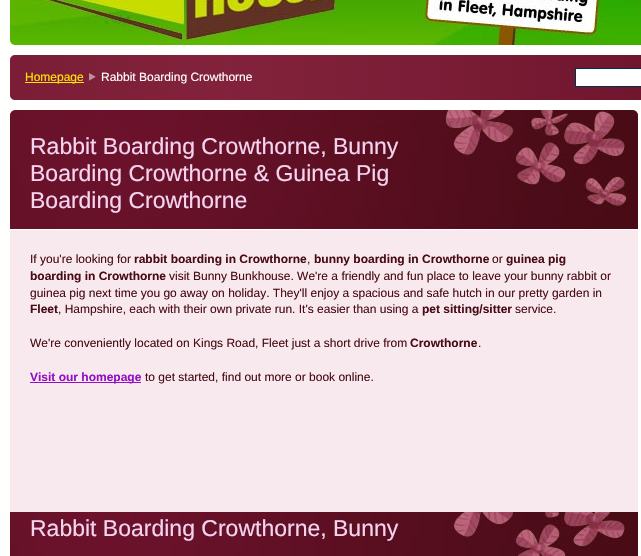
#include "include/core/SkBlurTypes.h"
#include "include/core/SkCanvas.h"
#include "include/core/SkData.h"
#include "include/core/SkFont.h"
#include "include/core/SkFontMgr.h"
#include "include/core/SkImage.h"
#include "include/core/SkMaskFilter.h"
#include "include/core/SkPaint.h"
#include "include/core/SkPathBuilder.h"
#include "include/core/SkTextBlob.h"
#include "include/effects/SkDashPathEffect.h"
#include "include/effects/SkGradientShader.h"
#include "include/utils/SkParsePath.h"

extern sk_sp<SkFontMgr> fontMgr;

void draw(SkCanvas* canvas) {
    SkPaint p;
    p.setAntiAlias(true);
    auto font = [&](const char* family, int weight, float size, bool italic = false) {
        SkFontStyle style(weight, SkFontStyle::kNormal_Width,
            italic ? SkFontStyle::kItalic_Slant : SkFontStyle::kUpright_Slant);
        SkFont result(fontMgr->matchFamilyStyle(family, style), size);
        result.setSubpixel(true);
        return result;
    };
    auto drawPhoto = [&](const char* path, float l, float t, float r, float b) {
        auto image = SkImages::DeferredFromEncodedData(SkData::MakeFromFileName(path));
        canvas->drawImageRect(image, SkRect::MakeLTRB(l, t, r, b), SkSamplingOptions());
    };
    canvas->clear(0xFFFFFFFE);
    drawPhoto("media/1.png", 10, 0, 641, 45);
    drawPhoto("media/2.png", 10, 40, 15, 45);
    drawPhoto("media/3.png", 10, 55, 641, 100);
    drawPhoto("media/4.png", 10, 95, 14, 100);
    drawPhoto("media/5.png", 10, 55, 15, 60);
    p.setColor(0xFFFFE400);
    canvas->drawRect(SkRect::MakeLTRB(25, 82, 84, 83), p);
    auto font1 = font("Liberation Sans", 400, 12);
    canvas->drawString("Homepage", 25, 81, font1, p);
    drawPhoto("media/6.png", 89, 73, 96, 81);
    p.setColor(0xFFFFFFFF);
    canvas->drawString("Rabbit Boarding Crowthorne", 101, 81, font1, p);
    canvas->drawRect(SkRect::MakeLTRB(575.5f, 68.5f, 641.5f, 86.5f), p);
    p.setStyle(SkPaint::kStroke_Style);
    p.setStrokeWidth(1);
    p.setColor(0xFF00314C);
    canvas->drawRect(SkRect::MakeLTRB(575.5f, 68.5f, 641.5f, 86.5f), p);
    p.setStyle(SkPaint::kFill_Style);
    p.setColor(0xFFF7E9ED);
    canvas->drawRect(SkRect::MakeLTRB(10, 230, 638, 512), p);
    drawPhoto("media/7.png", 10, 110, 638, 130);
    drawPhoto("media/8.png", 10, 130, 638, 229);
    auto font2 = font("Liberation Sans", 400, 23);
    p.setColor(0xFFF5D4EF);
    {
        const struct { const char* s; float x, y; } items[] = {
            {"Rabbit Boarding Crowthorne, Bunny", 30, 154},
            {"Boarding Crowthorne & Guinea Pig", 30, 181},
            {"Boarding Crowthorne", 30, 208},
        };
        for (auto [s, x, y] : items) {
            canvas->drawString(s, x, y, font2, p);
        }
    }
    p.setColor(0xFF490B16);
    canvas->drawString("If you're looking for", 30, 263, font1, p);
    auto font3 = font("Liberation Sans", 700, 12);
    canvas->drawString("rabbit boarding in Crowthorne", 134, 263, font3, p);
    canvas->drawString(",", 307, 263, font1, p);
    canvas->drawString("bunny boarding in Crowthorne", 314, 263, font3, p);
    canvas->drawString("or", 492, 263, font1, p);
    canvas->drawString("guinea pig", 506, 263, font3, p);
    canvas->drawString("boarding in Crowthorne", 30, 280, font3, p);
    canvas->drawString("visit Bunny Bunkhouse. We're a friendly and fun place to leave your bunny rabbit or", 169, 280, font1, p);
    canvas->drawString("guinea pig next time you go away on holiday. They'll enjoy a spacious and safe hutch in our pretty garden in", 30, 297, font1, p);
    canvas->drawString("Fleet", 30, 313, font3, p);
    canvas->drawString(", Hampshire, each with their own private run. It's easier than using a", 58, 313, font1, p);
    canvas->drawString("pet sitting/sitter", 422, 313, font3, p);
    canvas->drawString("service.", 515, 313, font1, p);
    canvas->drawString("We're conveniently located on Kings Road, Fleet just a short drive from", 30, 347, font1, p);
    canvas->drawString("Crowthorne", 410, 347, font3, p);
    canvas->drawString(".", 478, 347, font1, p);
    p.setColor(0xFF9310C7);
    canvas->drawRect(SkRect::MakeLTRB(30, 382, 141, 383), p);
    canvas->drawString("Visit our homepage", 30, 381, font3, p);
    p.setColor(0xFF490B16);
    canvas->drawString("to get started, find out more or book online.", 145, 381, font1, p);
    drawPhoto("media/9.png", 10, 512, 638, 556);
    p.setColor(0xFFF5D4EF);
    canvas->drawString("Rabbit Boarding Crowthorne, Bunny", 30, 536, font2, p);
}
